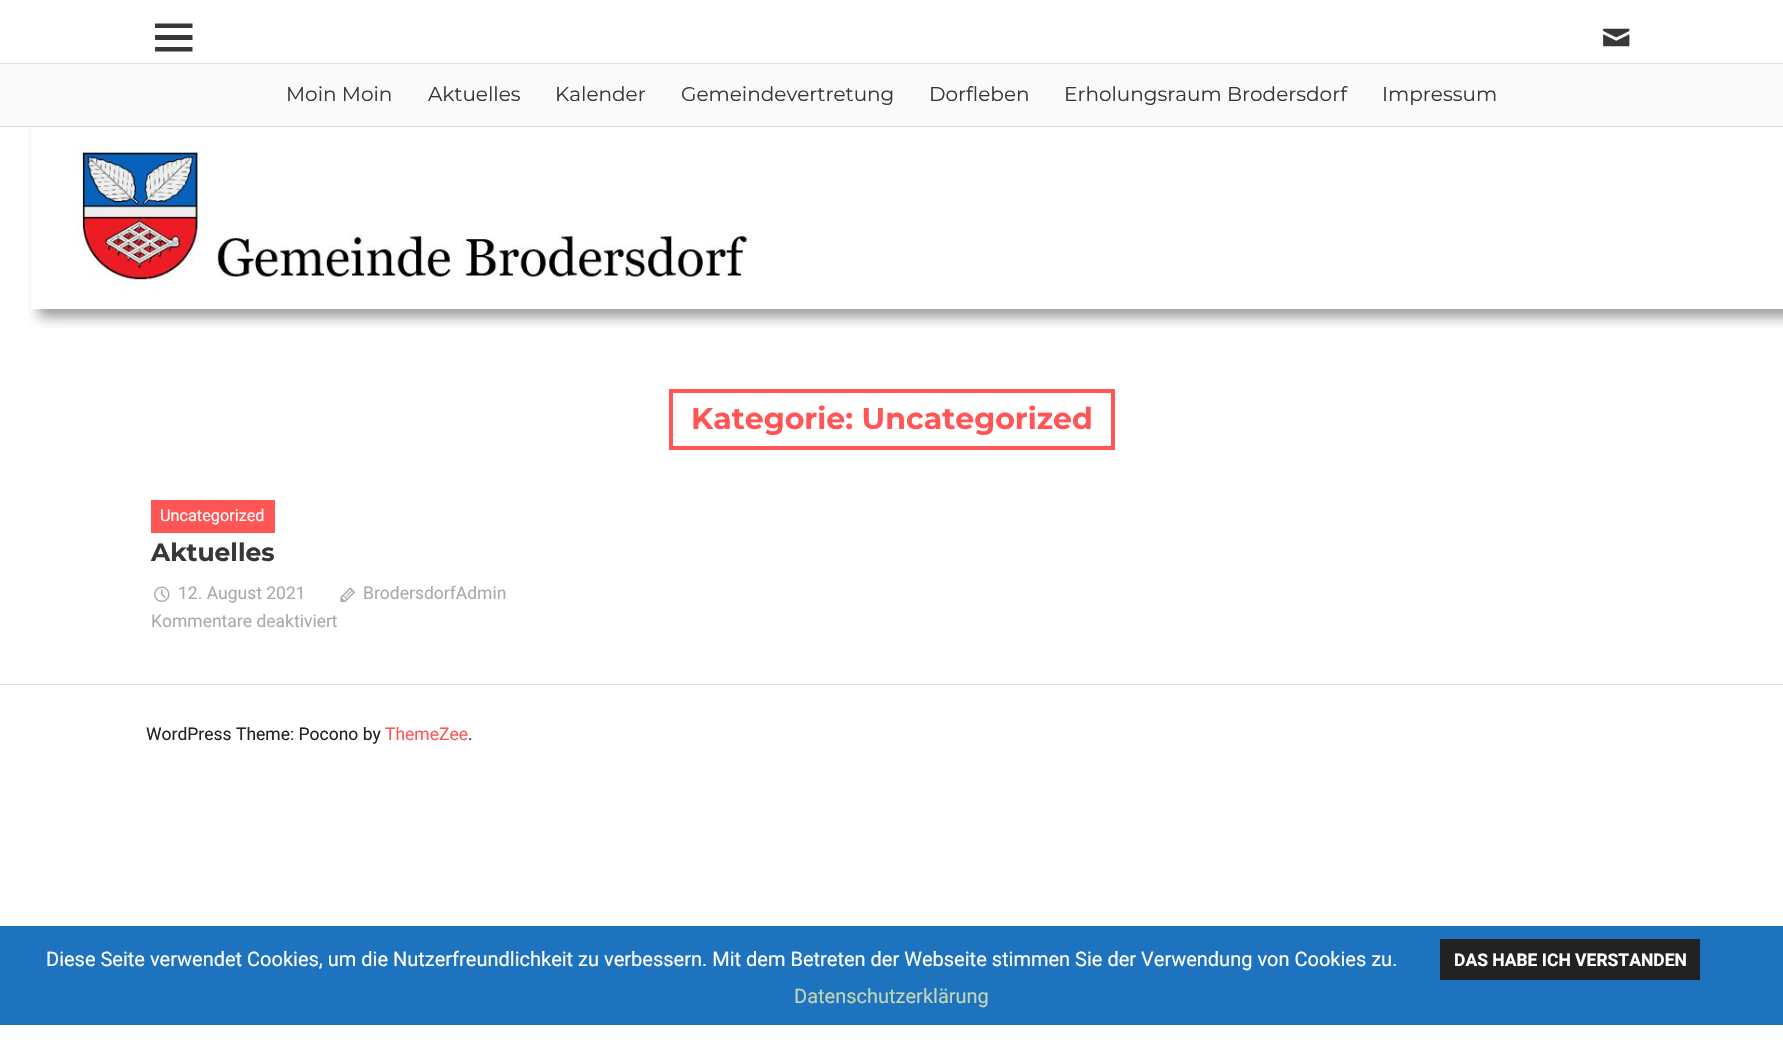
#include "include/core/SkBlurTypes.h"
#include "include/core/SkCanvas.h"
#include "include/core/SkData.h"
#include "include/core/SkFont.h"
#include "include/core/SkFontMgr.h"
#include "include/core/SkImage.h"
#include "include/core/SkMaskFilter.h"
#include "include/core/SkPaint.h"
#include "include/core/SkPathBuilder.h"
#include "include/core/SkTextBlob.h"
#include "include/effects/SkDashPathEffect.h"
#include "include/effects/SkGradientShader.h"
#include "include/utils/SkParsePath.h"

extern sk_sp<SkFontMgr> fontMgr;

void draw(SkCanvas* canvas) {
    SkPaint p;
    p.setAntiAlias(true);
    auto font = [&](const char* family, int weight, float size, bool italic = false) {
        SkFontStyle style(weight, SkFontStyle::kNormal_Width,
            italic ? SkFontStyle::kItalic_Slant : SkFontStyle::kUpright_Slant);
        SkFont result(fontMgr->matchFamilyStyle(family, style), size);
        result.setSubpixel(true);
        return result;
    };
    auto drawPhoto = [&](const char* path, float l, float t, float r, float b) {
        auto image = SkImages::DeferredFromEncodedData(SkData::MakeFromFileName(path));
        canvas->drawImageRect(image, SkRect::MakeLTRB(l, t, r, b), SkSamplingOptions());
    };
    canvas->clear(0xFFFFFFFF);
    p.setColor(0xFFDFDFDF);
    canvas->drawRect(SkRect::MakeLTRB(0, 63, 1783, 64), p);
    p.setColor(0xFF373737);
    canvas->drawPath(SkPathBuilder().moveTo(155, 51.5f).lineTo(155, 47).lineTo(192.5f, 47).lineTo(192.5f, 51.5f).close().moveTo(155, 23.5f).lineTo(192.5f, 23.5f).lineTo(192.5f, 28).lineTo(155, 28).close().moveTo(155, 40).lineTo(155, 35).lineTo(192.5f, 35).lineTo(192.5f, 40).close().detach(), p);
    drawPhoto("media/1.png", 1603, 28, 1630, 47);
    p.setColor(0xFFFAFAFA);
    canvas->drawRect(SkRect::MakeLTRB(0, 64, 1783, 128), p);
    p.setColor(0xFFDBDBDB);
    canvas->drawRect(SkRect::MakeLTRB(0, 126, 1783, 127), p);
    auto font1 = font("Montserrat", 400, 20);
    p.setColor(0xFF373737);
    {
        const struct { const char* s; float x, y; } items[] = {
            {"Moin Moin", 286, 101},
            {"Aktuelles", 428, 101},
            {"Kalender", 555, 101},
            {"Gemeindevertretung", 681, 101},
            {"Dorfleben", 929, 101},
            {"Erholungsraum Brodersdorf", 1064, 101},
            {"Impressum", 1382, 101},
        };
        for (auto [s, x, y] : items) {
            canvas->drawString(s, x, y, font1, p);
        }
    }
    drawPhoto("media/2.png", 28, 128, 1783, 328);
    p.setStyle(SkPaint::kStroke_Style);
    p.setStrokeWidth(4);
    p.setColor(0xFFFF5555);
    canvas->drawRect(SkRect::MakeLTRB(671, 391, 1113, 448), p);
    auto font2 = font("Montserrat", 700, 30);
    p.setStyle(SkPaint::kFill_Style);
    canvas->drawString("Kategorie: Uncategorized", 691, 429, font2, p);
    canvas->drawRect(SkRect::MakeLTRB(151, 500, 275, 533), p);
    auto font3 = font("Roboto", 400, 16.25f);
    p.setColor(0xFFFFFFFF);
    canvas->drawString("Uncategorized", 160, 521, font3, p);
    auto font4 = font("Montserrat", 700, 25);
    p.setColor(0xFF373737);
    canvas->drawString("Aktuelles", 151, 561, font4, p);
    drawPhoto("media/3.png", 154, 586, 170, 602);
    auto font5 = font("Roboto", 400, 17.5f);
    p.setColor(0xFFAAAAAA);
    canvas->drawString("12. August 2021", 178, 599, font5, p);
    drawPhoto("media/4.png", 340, 587, 356, 602);
    canvas->drawString("BrodersdorfAdmin", 363, 599, font5, p);
    canvas->drawString("Kommentare deaktiviert", 151, 627, font5, p);
    p.setColor(0xFFDFDFDF);
    canvas->drawRect(SkRect::MakeLTRB(0, 684, 1783, 685), p);
    p.setColor(0xFF222222);
    canvas->drawString("WordPress Theme: Pocono by", 146, 740, font5, p);
    p.setColor(0xFFFF5555);
    canvas->drawString("ThemeZee", 385, 740, font5, p);
    p.setColor(0xFF222222);
    canvas->drawString(".", 468, 740, font5, p);
    p.setColor(0xFF1E73BE);
    canvas->drawRect(SkRect::MakeLTRB(0, 926, 1783, 1025), p);
    auto font6 = font("Roboto", 400, 20);
    p.setColor(0xFFFFFFFF);
    canvas->drawString("Diese Seite verwendet Cookies, um die Nutzerfreundlichkeit zu verbessern. Mit dem Betreten der Webseite stimmen Sie der Verwendung von Cookies zu.", 46, 966, font6, p);
    p.setColor(0xFF222222);
    canvas->drawRect(SkRect::MakeLTRB(1440, 939, 1700, 980), p);
    auto font7 = font("Roboto", 700, 17.5f);
    p.setColor(0xFFFFFFFF);
    canvas->drawString("DAS HABE ICH VERSTANDEN", 1454, 966, font7, p);
    p.setColor(0xFFC2D6B6);
    canvas->drawString("Datenschutzerklärung", 794, 1003, font6, p);
}
